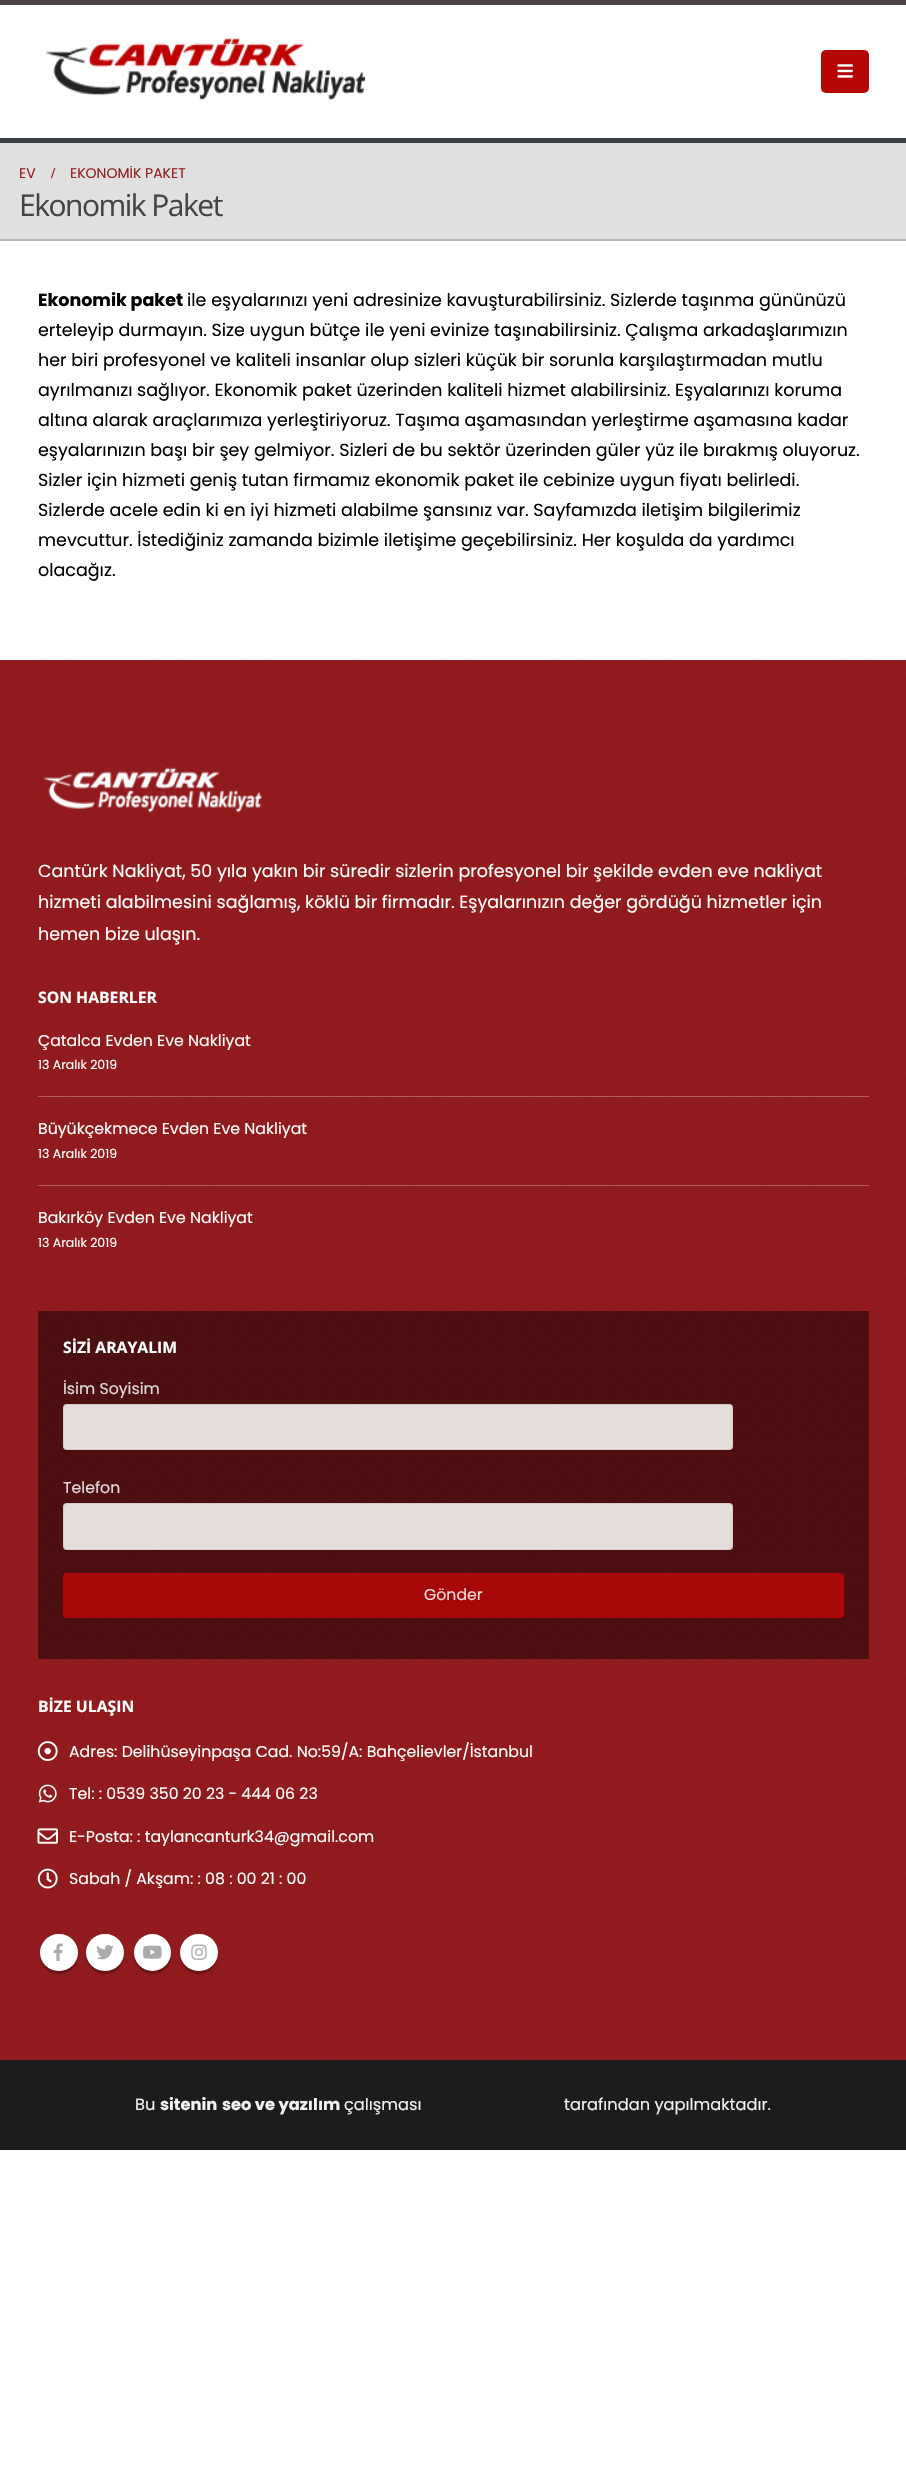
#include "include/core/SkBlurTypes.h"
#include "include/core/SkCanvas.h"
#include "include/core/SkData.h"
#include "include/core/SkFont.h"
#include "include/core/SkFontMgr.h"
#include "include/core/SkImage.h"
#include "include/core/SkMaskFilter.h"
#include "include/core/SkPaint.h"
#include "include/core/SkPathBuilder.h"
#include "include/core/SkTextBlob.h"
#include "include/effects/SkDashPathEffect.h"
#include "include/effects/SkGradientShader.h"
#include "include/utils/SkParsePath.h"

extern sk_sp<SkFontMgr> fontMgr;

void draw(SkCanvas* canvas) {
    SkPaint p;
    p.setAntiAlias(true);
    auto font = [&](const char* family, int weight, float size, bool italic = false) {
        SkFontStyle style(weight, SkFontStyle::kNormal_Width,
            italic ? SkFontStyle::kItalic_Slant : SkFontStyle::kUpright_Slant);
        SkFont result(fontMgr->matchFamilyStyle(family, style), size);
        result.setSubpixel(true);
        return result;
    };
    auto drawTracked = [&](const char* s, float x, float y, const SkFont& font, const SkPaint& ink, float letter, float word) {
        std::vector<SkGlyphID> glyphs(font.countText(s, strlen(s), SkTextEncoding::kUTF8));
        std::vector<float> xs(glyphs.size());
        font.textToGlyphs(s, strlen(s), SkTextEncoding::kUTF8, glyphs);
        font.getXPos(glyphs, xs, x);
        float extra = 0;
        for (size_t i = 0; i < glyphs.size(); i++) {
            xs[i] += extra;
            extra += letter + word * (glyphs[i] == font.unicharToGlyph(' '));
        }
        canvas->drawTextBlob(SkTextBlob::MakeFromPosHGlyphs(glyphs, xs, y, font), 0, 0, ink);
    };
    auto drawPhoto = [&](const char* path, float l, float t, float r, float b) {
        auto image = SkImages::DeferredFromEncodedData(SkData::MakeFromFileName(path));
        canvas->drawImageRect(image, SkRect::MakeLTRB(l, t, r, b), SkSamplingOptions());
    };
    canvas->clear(0xFFFFFFFF);
    p.setColor(0xFF4C4345);
    canvas->drawRect(SkRect::MakeLTRB(0, 0, 906, 5), p);
    drawPhoto("media/1.png", 46, 38, 366, 101);
    p.setColor(0xFFB50505);
    canvas->drawRoundRect(SkRect::MakeLTRB(821, 50, 869, 93), 5, 5, p);
    drawPhoto("media/2.png", 837, 64, 853, 78);
    {
        const struct { float l, t, r, b; SkColor color; } items[] = {
            {0, 143, 906, 239, 0xFFE0E0E0},
            {0, 138, 906, 143, 0xFF384045},
            {0, 239, 906, 241, 0xFFB5B5B5},
        };
        for (auto [l, t, r, b, color] : items) {
            p.setColor(color);
            canvas->drawRect(SkRect::MakeLTRB(l, t, r, b), p);
        }
    }
    auto font1 = font("Poppins", 400, 14);
    p.setColor(0xFF981C1F);
    canvas->drawString("EV", 19, 178, font1, p);
    auto font2 = font("Liberation Serif", 700, 15);
    canvas->drawString("/", 51, 178, font2, p);
    canvas->drawString("EKONOMİK PAKET", 70, 178, font1, p);
    auto font3 = font("Open Sans", 400, 30);
    p.setColor(0xFF444444);
    drawTracked("Ekonomik Paket", 19, 216, font3, p, -1.5f, 0);
    auto font4 = font("Poppins", 700, 17.5f);
    p.setColor(0xFF000000);
    canvas->drawString("Ekonomik paket", 38, 306, font4, p);
    auto font5 = font("Poppins", 400, 17.5f);
    {
        const struct { const char* s; float x, y; } items[] = {
            {"ile eşyalarınızı yeni adresinize kavuşturabilirsiniz. Sizlerde taşınma gününüzü", 187, 306},
            {"erteleyip durmayın. Size uygun bütçe ile yeni evinize taşınabilirsiniz. Çalışma arkadaşlarımızın", 38, 336},
            {"her biri profesyonel ve kaliteli insanlar olup sizleri küçük bir sorunla karşılaştırmadan mutlu", 38, 366},
            {"ayrılmanızı sağlıyor. Ekonomik paket üzerinden kaliteli hizmet alabilirsiniz. Eşyalarınızı koruma", 38, 396},
            {"altına alarak araçlarımıza yerleştiriyoruz. Taşıma aşamasından yerleştirme aşamasına kadar", 38, 426},
            {"eşyalarınızın başı bir şey gelmiyor. Sizleri de bu sektör üzerinden güler yüz ile bırakmış oluyoruz.", 38, 456},
            {"Sizler için hizmeti geniş tutan firmamız ekonomik paket ile cebinize uygun fiyatı belirledi.", 38, 486},
            {"Sizlerde acele edin ki en iyi hizmeti alabilme şansınız var. Sayfamızda iletişim bilgilerimiz", 38, 516},
            {"mevcuttur. İstediğiniz zamanda bizimle iletişime geçebilirsiniz. Her koşulda da yardımcı", 38, 546},
            {"olacağız.", 38, 576},
        };
        for (auto [s, x, y] : items) {
            canvas->drawString(s, x, y, font5, p);
        }
    }
    p.setColor(0xFF981C1F);
    canvas->drawRect(SkRect::MakeLTRB(0, 660, 906, 2060), p);
    drawPhoto("media/3.png", 0, 660, 906, 2060);
    drawPhoto("media/4.png", 43, 767, 262, 813);
    p.setColor(0xFFFFFFFF);
    {
        const struct { const char* s; float x, y; } items[] = {
            {"Cantürk Nakliyat, 50 yıla yakın bir süredir sizlerin profesyonel bir şekilde evden eve nakliyat", 38, 877},
            {"hizmeti alabilmesini sağlamış, köklü bir firmadır. Eşyalarınızın değer gördüğü hizmetler için", 38, 908},
            {"hemen bize ulaşın.", 38, 940},
        };
        for (auto [s, x, y] : items) {
            canvas->drawString(s, x, y, font5, p);
        }
    }
    auto font6 = font("Open Sans", 700, 15.75f);
    canvas->drawString("SON HABERLER", 38, 1003, font6, p);
    auto font7 = font("Poppins", 400, 15.75f);
    canvas->drawString("Çatalca Evden Eve Nakliyat", 38, 1046, font7, p);
    auto font8 = font("Poppins", 400, 12.5f);
    canvas->drawString("13 Aralık 2019", 38, 1069, font8, p);
    p.setColor(0x4DFFFFFF);
    canvas->drawRect(SkRect::MakeLTRB(38, 1096, 869, 1097), p);
    p.setColor(0xFFFFFFFF);
    canvas->drawString("Büyükçekmece Evden Eve Nakliyat", 38, 1134, font7, p);
    canvas->drawString("13 Aralık 2019", 38, 1158, font8, p);
    p.setColor(0x4DFFFFFF);
    canvas->drawRect(SkRect::MakeLTRB(38, 1185, 869, 1186), p);
    p.setColor(0xFFFFFFFF);
    canvas->drawString("Bakırköy Evden Eve Nakliyat", 38, 1223, font7, p);
    canvas->drawString("13 Aralık 2019", 38, 1247, font8, p);
    p.setColor(0x78000000);
    canvas->drawRect(SkRect::MakeLTRB(38, 1311, 869, 1659), p);
    p.setColor(0xFFFFFFFF);
    canvas->drawString("SİZİ ARAYALIM", 63, 1353, font6, p);
    p.setColor(0xFFE4DBDB);
    canvas->drawString("İsim Soyisim", 63, 1394, font7, p);
    p.setColor(0xD9FFFFFF);
    canvas->drawRoundRect(SkRect::MakeLTRB(63, 1404, 733, 1450), 4, 4, p);
    p.setStyle(SkPaint::kStroke_Style);
    p.setStrokeWidth(1);
    p.setColor(0x14000000);
    canvas->drawRoundRect(SkRect::MakeLTRB(63.5f, 1404.5f, 732.5f, 1449.5f), 3.5f, 3.5f, p);
    p.setStyle(SkPaint::kFill_Style);
    p.setColor(0xFFE4DBDB);
    canvas->drawString("Telefon", 63, 1493, font7, p);
    p.setColor(0xD9FFFFFF);
    canvas->drawRoundRect(SkRect::MakeLTRB(63, 1503, 733, 1550), 4, 4, p);
    p.setStyle(SkPaint::kStroke_Style);
    p.setColor(0x14000000);
    canvas->drawRoundRect(SkRect::MakeLTRB(63.5f, 1503.5f, 732.5f, 1549.5f), 3.5f, 3.5f, p);
    p.setStyle(SkPaint::kFill_Style);
    p.setColor(0xD9B50505);
    canvas->drawRoundRect(SkRect::MakeLTRB(63, 1573, 844, 1618), 4, 4, p);
    p.setStyle(SkPaint::kStroke_Style);
    canvas->drawRoundRect(SkRect::MakeLTRB(63.5f, 1573.5f, 843.5f, 1617.5f), 3.5f, 3.5f, p);
    p.setStyle(SkPaint::kFill_Style);
    p.setColor(0xFFF2DADA);
    canvas->drawString("Gönder", 424, 1600, font7, p);
    p.setColor(0xFFFFFFFF);
    canvas->drawString("BİZE ULAŞIN", 38, 1712, font6, p);
    drawPhoto("media/5.png", 37, 1741, 58, 1761);
    canvas->drawString("Adres: Delihüseyinpaşa Cad. No:59/A: Bahçelievler/İstanbul", 69, 1757, font7, p);
    drawPhoto("media/6.png", 38, 1784, 57, 1803);
    canvas->drawString("Tel: : 0539 350 20 23 - 444 06 23", 69, 1799, font7, p);
    drawPhoto("media/7.png", 37, 1828, 58, 1844);
    canvas->drawString("E-Posta: : taylancanturk34@gmail.com", 69, 1842, font7, p);
    drawPhoto("media/8.png", 37, 1868, 58, 1889);
    canvas->drawString("Sabah / Akşam: : 08 : 00 21 : 00", 69, 1884, font7, p);
    p.setColor(0x4D000000);
    p.setMaskFilter(SkMaskFilter::MakeBlur(kNormal_SkBlurStyle, 1));
    canvas->drawRoundRect(SkRect::MakeLTRB(40, 1936, 78, 1974), 19, 19, p);
    p.setMaskFilter(nullptr);
    p.setColor(0xFFFFFFFF);
    canvas->drawRoundRect(SkRect::MakeLTRB(40, 1934, 78, 1971), 18.5f, 18.5f, p);
    drawPhoto("media/9.png", 53, 1943, 63, 1961);
    p.setColor(0x4D000000);
    p.setMaskFilter(SkMaskFilter::MakeBlur(kNormal_SkBlurStyle, 1));
    canvas->drawRoundRect(SkRect::MakeLTRB(86, 1936, 124, 1974), 19, 19, p);
    p.setMaskFilter(nullptr);
    p.setColor(0xFFFFFFFF);
    canvas->drawRoundRect(SkRect::MakeLTRB(86, 1934, 124, 1971), 18.5f, 18.5f, p);
    drawPhoto("media/10.png", 96, 1945, 114, 1960);
    p.setColor(0x4D000000);
    p.setMaskFilter(SkMaskFilter::MakeBlur(kNormal_SkBlurStyle, 1));
    canvas->drawRoundRect(SkRect::MakeLTRB(134, 1936, 171, 1974), 18.5f, 18.5f, p);
    p.setMaskFilter(nullptr);
    p.setColor(0xFFFFFFFF);
    canvas->drawCircle(152.5f, 1952.5f, 18.5f, p);
    drawPhoto("media/11.png", 143, 1945, 162, 1959);
    p.setColor(0x4D000000);
    p.setMaskFilter(SkMaskFilter::MakeBlur(kNormal_SkBlurStyle, 1));
    canvas->drawRoundRect(SkRect::MakeLTRB(180, 1936, 218, 1974), 19, 19, p);
    p.setMaskFilter(nullptr);
    p.setColor(0xFFFFFFFF);
    canvas->drawRoundRect(SkRect::MakeLTRB(180, 1934, 218, 1971), 18.5f, 18.5f, p);
    drawPhoto("media/12.png", 191, 1944, 207, 1960);
    p.setColor(0xFF1C1C1C);
    canvas->drawRect(SkRect::MakeLTRB(0, 2060, 906, 2150), p);
    auto font9 = font("Poppins", 400, 16.25f);
    p.setColor(0xFFF2F2F2);
    canvas->drawString("Bu", 135, 2110, font9, p);
    auto font10 = font("Poppins", 700, 16.25f);
    canvas->drawString("sitenin", 160, 2110, font10, p);
    canvas->drawString("seo ve yazılım", 222, 2110, font10, p);
    canvas->drawString("çalışması", 344, 2110, font9, p);
    canvas->drawString("tarafından yapılmaktadır.", 564, 2110, font9, p);
}
